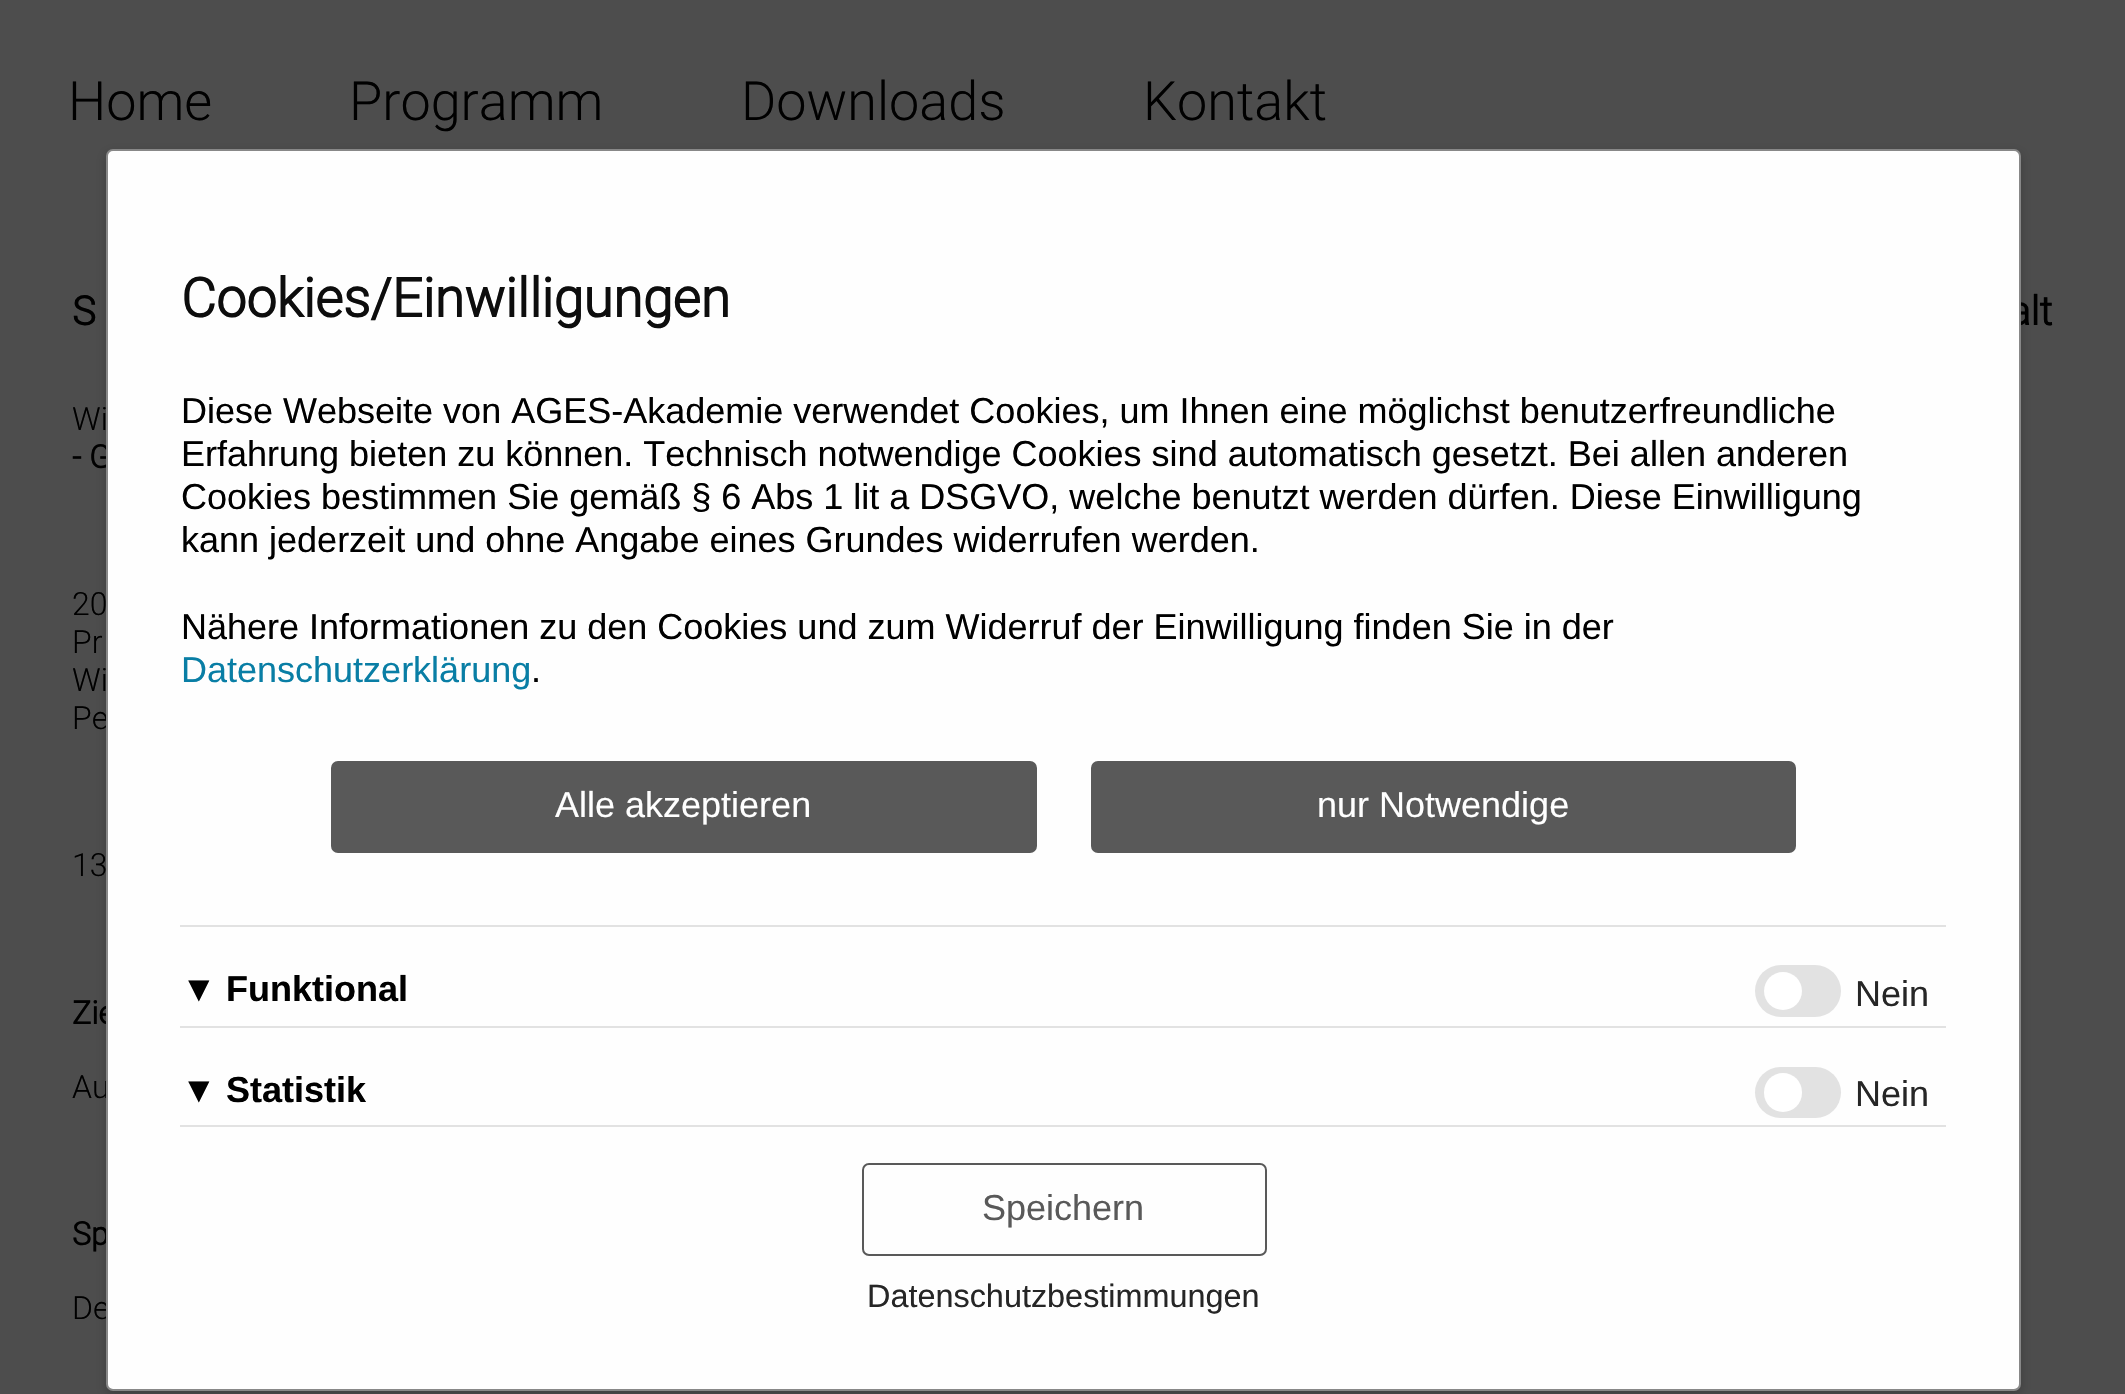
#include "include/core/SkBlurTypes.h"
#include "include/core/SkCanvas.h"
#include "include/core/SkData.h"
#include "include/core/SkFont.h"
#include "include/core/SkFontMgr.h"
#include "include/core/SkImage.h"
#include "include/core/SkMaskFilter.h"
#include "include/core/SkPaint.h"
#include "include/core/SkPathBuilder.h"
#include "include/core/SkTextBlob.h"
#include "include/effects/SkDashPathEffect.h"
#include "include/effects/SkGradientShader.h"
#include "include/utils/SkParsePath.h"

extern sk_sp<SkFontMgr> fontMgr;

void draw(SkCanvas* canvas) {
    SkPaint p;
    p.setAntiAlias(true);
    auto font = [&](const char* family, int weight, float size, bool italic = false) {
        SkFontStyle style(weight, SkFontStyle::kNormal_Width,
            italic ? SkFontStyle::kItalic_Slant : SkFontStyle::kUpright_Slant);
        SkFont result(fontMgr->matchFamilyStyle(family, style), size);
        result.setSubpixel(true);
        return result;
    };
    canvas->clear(0xFF4D4D4D);
    auto font1 = font("Roboto", 300, 54);
    p.setColor(0xFF000000);
    {
        const struct { const char* s; float x, y; } items[] = {
            {"Home", 68, 120},
            {"Programm", 349, 120},
            {"Downloads", 741, 120},
            {"Kontakt", 1143, 120},
        };
        for (auto [s, x, y] : items) {
            canvas->drawString(s, x, y, font1, p);
        }
    }
    auto font2 = font("Roboto", 700, 40);
    canvas->drawString("S", 72, 325, font2, p);
    canvas->drawString("alt", 2009, 325, font2, p);
    auto font3 = font("Roboto", 300, 32);
    canvas->drawString("Wi", 72, 430, font3, p);
    auto font4 = font("Roboto", 700, 32);
    canvas->drawString("- G", 72, 468, font4, p);
    {
        const struct { const char* s; float x, y; } items[] = {
            {"20", 72, 615},
            {"Pr", 72, 653},
            {"Wi", 72, 691},
            {"Pe", 72, 729},
            {"13", 72, 876},
        };
        for (auto [s, x, y] : items) {
            canvas->drawString(s, x, y, font3, p);
        }
    }
    canvas->drawString("Zie", 72, 1024, font4, p);
    canvas->drawString("Au", 72, 1098, font3, p);
    canvas->drawString("Sp", 72, 1245, font4, p);
    canvas->drawString("De", 72, 1319, font3, p);
    p.setColor(0x33000000);
    p.setMaskFilter(SkMaskFilter::MakeBlur(kNormal_SkBlurStyle, 5.5f));
    canvas->drawRoundRect(SkRect::MakeLTRB(106, 153, 2021, 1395), 7, 7, p);
    p.setMaskFilter(nullptr);
    p.setColor(0xFFFEFEFE);
    canvas->drawRoundRect(SkRect::MakeLTRB(107, 150, 2020, 1390), 6, 6, p);
    p.setStyle(SkPaint::kStroke_Style);
    p.setStrokeWidth(2);
    p.setColor(0xFF888888);
    canvas->drawRoundRect(SkRect::MakeLTRB(107, 150, 2020, 1390), 6, 6, p);
    auto font5 = font("Roboto", 700, 54);
    p.setStyle(SkPaint::kFill_Style);
    p.setColor(0xFF0D0D0D);
    canvas->drawString("Cookies/Einwilligungen", 181, 317, font5, p);
    auto font6 = font("Liberation Sans", 400, 36);
    p.setColor(0xFF000000);
    {
        const struct { const char* s; float x, y; } items[] = {
            {"Diese Webseite von AGES-Akademie verwendet Cookies, um Ihnen eine möglichst benutzerfreundliche", 181, 423},
            {"Erfahrung bieten zu können. Technisch notwendige Cookies sind automatisch gesetzt. Bei allen anderen", 181, 466},
            {"Cookies bestimmen Sie gemäß § 6 Abs 1 lit a DSGVO, welche benutzt werden dürfen. Diese Einwilligung", 181, 509},
            {"kann jederzeit und ohne Angabe eines Grundes widerrufen werden.", 181, 552},
            {"Nähere Informationen zu den Cookies und zum Widerruf der Einwilligung finden Sie in der", 181, 639},
        };
        for (auto [s, x, y] : items) {
            canvas->drawString(s, x, y, font6, p);
        }
    }
    p.setColor(0xFF097EA5);
    canvas->drawString("Datenschutzerklärung", 181, 682, font6, p);
    p.setColor(0xFF000000);
    canvas->drawString(".", 531, 682, font6, p);
    p.setColor(0xFF595959);
    canvas->drawRoundRect(SkRect::MakeLTRB(332, 762, 1036, 852), 6, 6, p);
    p.setStyle(SkPaint::kStroke_Style);
    canvas->drawRoundRect(SkRect::MakeLTRB(332, 762, 1036, 852), 6, 6, p);
    p.setStyle(SkPaint::kFill_Style);
    p.setColor(0xFFFFFFFF);
    canvas->drawString("Alle akzeptieren", 555, 817, font6, p);
    p.setColor(0xFF595959);
    canvas->drawRoundRect(SkRect::MakeLTRB(1092, 762, 1795, 852), 6, 6, p);
    p.setStyle(SkPaint::kStroke_Style);
    canvas->drawRoundRect(SkRect::MakeLTRB(1092, 762, 1795, 852), 6, 6, p);
    p.setStyle(SkPaint::kFill_Style);
    p.setColor(0xFFFFFFFF);
    canvas->drawString("nur Notwendige", 1317, 817, font6, p);
    p.setColor(0xFFE2E2E2);
    canvas->drawRect(SkRect::MakeLTRB(180, 925, 1946, 927), p);
    p.setColor(0xFF000000);
    canvas->drawString("▼", 181, 1001, font6, p);
    auto font7 = font("Liberation Sans", 700, 36);
    canvas->drawString("Funktional", 226, 1001, font7, p);
    p.setColor(0xFFE2E2E2);
    canvas->drawRoundRect(SkRect::MakeLTRB(1755, 965, 1841, 1017), 26, 26, p);
    p.setColor(0xFFFFFFFF);
    canvas->drawCircle(1783, 991, 19, p);
    p.setColor(0xFF262626);
    canvas->drawString("Nein", 1855, 1006, font6, p);
    p.setColor(0xFFE2E2E2);
    canvas->drawRect(SkRect::MakeLTRB(180, 1026, 1946, 1028), p);
    p.setColor(0xFF000000);
    canvas->drawString("▼", 181, 1102, font6, p);
    canvas->drawString("Statistik", 226, 1102, font7, p);
    p.setColor(0xFFE2E2E2);
    canvas->drawRoundRect(SkRect::MakeLTRB(1755, 1067, 1841, 1118), 25.5f, 25.5f, p);
    p.setColor(0xFFFFFFFF);
    canvas->drawRoundRect(SkRect::MakeLTRB(1764, 1073, 1802, 1112), 19, 19, p);
    p.setColor(0xFF262626);
    canvas->drawString("Nein", 1855, 1106, font6, p);
    p.setColor(0xFFE2E2E2);
    canvas->drawRect(SkRect::MakeLTRB(180, 1125, 1946, 1127), p);
    p.setStyle(SkPaint::kStroke_Style);
    p.setColor(0xFF595959);
    canvas->drawRoundRect(SkRect::MakeLTRB(863, 1164, 1266, 1255), 6, 6, p);
    p.setStyle(SkPaint::kFill_Style);
    canvas->drawString("Speichern", 982, 1220, font6, p);
    auto font8 = font("Liberation Sans", 400, 32.4f);
    p.setColor(0xFF262626);
    canvas->drawString("Datenschutzbestimmungen", 867, 1307, font8, p);
}
